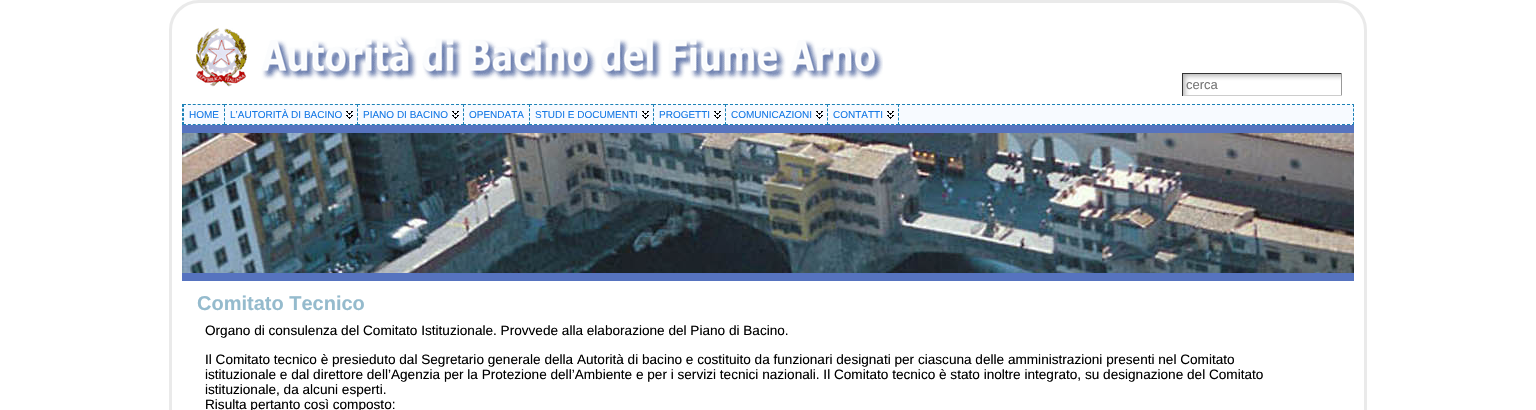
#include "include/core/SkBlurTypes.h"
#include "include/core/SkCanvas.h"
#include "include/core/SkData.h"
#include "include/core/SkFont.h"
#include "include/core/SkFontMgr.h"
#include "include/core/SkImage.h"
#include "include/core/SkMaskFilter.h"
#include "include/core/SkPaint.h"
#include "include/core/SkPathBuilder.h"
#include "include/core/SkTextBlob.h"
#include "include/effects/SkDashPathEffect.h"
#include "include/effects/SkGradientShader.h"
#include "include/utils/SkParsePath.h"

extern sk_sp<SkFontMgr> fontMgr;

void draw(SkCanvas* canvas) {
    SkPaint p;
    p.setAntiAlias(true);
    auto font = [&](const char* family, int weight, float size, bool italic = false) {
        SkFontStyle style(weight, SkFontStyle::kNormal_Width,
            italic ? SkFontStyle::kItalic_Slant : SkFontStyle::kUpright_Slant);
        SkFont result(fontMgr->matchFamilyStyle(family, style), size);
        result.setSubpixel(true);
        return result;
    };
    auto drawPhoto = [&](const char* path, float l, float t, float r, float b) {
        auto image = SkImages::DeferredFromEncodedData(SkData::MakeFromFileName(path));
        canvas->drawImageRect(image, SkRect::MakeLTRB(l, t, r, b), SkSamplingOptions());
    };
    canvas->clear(0xFFFFFFFF);
    p.setStyle(SkPaint::kStroke_Style);
    p.setStrokeWidth(3);
    p.setColor(0xFFEAEAEA);
    canvas->drawRoundRect(SkRect::MakeLTRB(170.5f, 1.5f, 1365.5f, 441.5f), 28.5f, 28.5f, p);
    drawPhoto("media/1.png", 195, 28, 883, 87);
    drawPhoto("media/2.png", 1183, 74, 1341, 95);
    p.setStyle(SkPaint::kFill_Style);
    {
        const struct { float l, t, r, b; SkColor color; } items[] = {
            {1182, 73, 1342, 74, 0xFF333333},
            {1341, 73, 1342, 96, 0xFF999999},
            {1182, 95, 1342, 96, 0xFFCCCCCC},
            {1182, 73, 1183, 96, 0xFF333333},
        };
        for (auto [l, t, r, b, color] : items) {
            p.setColor(color);
            canvas->drawRect(SkRect::MakeLTRB(l, t, r, b), p);
        }
    }
    auto font1 = font("Liberation Sans", 400, 13);
    p.setColor(0xFF777777);
    canvas->drawString("cerca", 1186, 89, font1, p);
    p.setColor(0xFFF7FAFF);
    canvas->drawRect(SkRect::MakeLTRB(182, 104, 1354, 125), p);
    p.setStyle(SkPaint::kStroke_Style);
    p.setStrokeWidth(1);
    p.setColor(0xFF1C81B6);
    p.setPathEffect(SkDashPathEffect::Make({{3, 2}}, 0));
    canvas->drawPath(SkPathBuilder().moveTo(182, 104.5f).lineTo(1354, 104.5f).detach(), p);
    p.setPathEffect(nullptr);
    p.setPathEffect(SkDashPathEffect::Make({{3, 1.5f}}, 0));
    canvas->drawPath(SkPathBuilder().moveTo(1353.5f, 104).lineTo(1353.5f, 125).detach(), p);
    p.setPathEffect(nullptr);
    p.setPathEffect(SkDashPathEffect::Make({{3, 2}}, 0));
    canvas->drawPath(SkPathBuilder().moveTo(182, 124.5f).lineTo(1354, 124.5f).detach(), p);
    p.setPathEffect(nullptr);
    p.setPathEffect(SkDashPathEffect::Make({{3, 1.5f}}, 0));
    canvas->drawPath(SkPathBuilder().moveTo(182.5f, 104).lineTo(182.5f, 125).detach(), p);
    p.setPathEffect(nullptr);
    p.setStyle(SkPaint::kFill_Style);
    p.setColor(0xFFF7FAFF);
    canvas->drawRect(SkRect::MakeLTRB(183, 104, 224, 125), p);
    p.setStyle(SkPaint::kStroke_Style);
    p.setColor(0xFF1C81B6);
    p.setPathEffect(SkDashPathEffect::Make({{3, 1.88f}}, 0));
    canvas->drawPath(SkPathBuilder().moveTo(183, 104.5f).lineTo(225, 104.5f).moveTo(183, 124.5f).lineTo(225, 124.5f).detach(), p);
    p.setPathEffect(nullptr);
    p.setPathEffect(SkDashPathEffect::Make({{3, 1.5f}}, 0));
    canvas->drawPath(SkPathBuilder().moveTo(183.5f, 104).lineTo(183.5f, 125).detach(), p);
    p.setPathEffect(nullptr);
    auto font2 = font("Liberation Sans", 400, 10);
    p.setStyle(SkPaint::kFill_Style);
    p.setColor(0xFF1679E6);
    canvas->drawString("HOME", 189, 118, font2, p);
    p.setColor(0xFFF7FAFF);
    canvas->drawRect(SkRect::MakeLTRB(224, 104, 355, 125), p);
    drawPhoto("media/3.png", 346, 111, 353, 119);
    p.setStyle(SkPaint::kStroke_Style);
    p.setColor(0xFF1C81B6);
    p.setPathEffect(SkDashPathEffect::Make({{3, 2.04f}}, 0));
    canvas->drawPath(SkPathBuilder().moveTo(224, 104.5f).lineTo(358, 104.5f).detach(), p);
    p.setPathEffect(nullptr);
    p.setPathEffect(SkDashPathEffect::Make({{3, 2.04f}}, 0));
    canvas->drawPath(SkPathBuilder().moveTo(224, 124.5f).lineTo(358, 124.5f).detach(), p);
    p.setPathEffect(nullptr);
    p.setPathEffect(SkDashPathEffect::Make({{3, 1.5f}}, 0));
    canvas->drawPath(SkPathBuilder().moveTo(224.5f, 104).lineTo(224.5f, 125).detach(), p);
    p.setPathEffect(nullptr);
    p.setStyle(SkPaint::kFill_Style);
    p.setColor(0xFF1679E6);
    canvas->drawString("L’AUTORITÀ DI BACINO", 230, 118, font2, p);
    p.setColor(0xFFF7FAFF);
    canvas->drawRect(SkRect::MakeLTRB(357, 104, 463, 125), p);
    drawPhoto("media/3.png", 452, 111, 459, 119);
    p.setStyle(SkPaint::kStroke_Style);
    p.setColor(0xFF1C81B6);
    p.setPathEffect(SkDashPathEffect::Make({{3, 1.95f}}, 0));
    canvas->drawPath(SkPathBuilder().moveTo(357, 104.5f).lineTo(464, 104.5f).detach(), p);
    p.setPathEffect(nullptr);
    p.setPathEffect(SkDashPathEffect::Make({{3, 1.95f}}, 0));
    canvas->drawPath(SkPathBuilder().moveTo(357, 124.5f).lineTo(464, 124.5f).detach(), p);
    p.setPathEffect(nullptr);
    p.setPathEffect(SkDashPathEffect::Make({{3, 1.5f}}, 0));
    canvas->drawPath(SkPathBuilder().moveTo(357.5f, 104).lineTo(357.5f, 125).detach(), p);
    p.setPathEffect(nullptr);
    p.setStyle(SkPaint::kFill_Style);
    p.setColor(0xFF1679E6);
    canvas->drawString("PIANO DI BACINO", 363, 118, font2, p);
    p.setColor(0xFFF7FAFF);
    canvas->drawRect(SkRect::MakeLTRB(463, 104, 529, 125), p);
    p.setStyle(SkPaint::kStroke_Style);
    p.setColor(0xFF1C81B6);
    p.setPathEffect(SkDashPathEffect::Make({{3, 1.92f}}, 0));
    canvas->drawPath(SkPathBuilder().moveTo(463, 104.5f).lineTo(530, 104.5f).detach(), p);
    p.setPathEffect(nullptr);
    p.setPathEffect(SkDashPathEffect::Make({{3, 1.92f}}, 0));
    canvas->drawPath(SkPathBuilder().moveTo(463, 124.5f).lineTo(530, 124.5f).detach(), p);
    p.setPathEffect(nullptr);
    p.setPathEffect(SkDashPathEffect::Make({{3, 1.5f}}, 0));
    canvas->drawPath(SkPathBuilder().moveTo(463.5f, 104).lineTo(463.5f, 125).detach(), p);
    p.setPathEffect(nullptr);
    p.setStyle(SkPaint::kFill_Style);
    p.setColor(0xFF1679E6);
    canvas->drawString("OPENDATA", 469, 118, font2, p);
    p.setColor(0xFFF7FAFF);
    canvas->drawRect(SkRect::MakeLTRB(529, 104, 653, 125), p);
    drawPhoto("media/3.png", 642, 111, 649, 119);
    p.setStyle(SkPaint::kStroke_Style);
    p.setColor(0xFF1C81B6);
    p.setPathEffect(SkDashPathEffect::Make({{3, 2.08f}}, 0));
    canvas->drawPath(SkPathBuilder().moveTo(529, 104.5f).lineTo(654, 104.5f).detach(), p);
    p.setPathEffect(nullptr);
    p.setPathEffect(SkDashPathEffect::Make({{3, 2.08f}}, 0));
    canvas->drawPath(SkPathBuilder().moveTo(529, 124.5f).lineTo(654, 124.5f).detach(), p);
    p.setPathEffect(nullptr);
    p.setPathEffect(SkDashPathEffect::Make({{3, 1.5f}}, 0));
    canvas->drawPath(SkPathBuilder().moveTo(529.5f, 104).lineTo(529.5f, 125).detach(), p);
    p.setPathEffect(nullptr);
    p.setStyle(SkPaint::kFill_Style);
    p.setColor(0xFF1679E6);
    canvas->drawString("STUDI E DOCUMENTI", 535, 118, font2, p);
    p.setColor(0xFFF7FAFF);
    canvas->drawRect(SkRect::MakeLTRB(653, 104, 725, 125), p);
    drawPhoto("media/3.png", 714, 111, 721, 119);
    p.setStyle(SkPaint::kStroke_Style);
    p.setColor(0xFF1C81B6);
    p.setPathEffect(SkDashPathEffect::Make({{3, 2}}, 0));
    canvas->drawPath(SkPathBuilder().moveTo(653, 104.5f).lineTo(726, 104.5f).detach(), p);
    p.setPathEffect(nullptr);
    p.setPathEffect(SkDashPathEffect::Make({{3, 2}}, 0));
    canvas->drawPath(SkPathBuilder().moveTo(653, 124.5f).lineTo(726, 124.5f).detach(), p);
    p.setPathEffect(nullptr);
    p.setPathEffect(SkDashPathEffect::Make({{3, 1.5f}}, 0));
    canvas->drawPath(SkPathBuilder().moveTo(653.5f, 104).lineTo(653.5f, 125).detach(), p);
    p.setPathEffect(nullptr);
    p.setStyle(SkPaint::kFill_Style);
    p.setColor(0xFF1679E6);
    canvas->drawString("PROGETTI", 659, 118, font2, p);
    p.setColor(0xFFF7FAFF);
    canvas->drawRect(SkRect::MakeLTRB(725, 104, 825, 125), p);
    drawPhoto("media/3.png", 816, 111, 823, 119);
    p.setStyle(SkPaint::kStroke_Style);
    p.setColor(0xFF1C81B6);
    p.setPathEffect(SkDashPathEffect::Make({{3, 2}}, 0));
    canvas->drawPath(SkPathBuilder().moveTo(725, 104.5f).lineTo(828, 104.5f).detach(), p);
    p.setPathEffect(nullptr);
    p.setPathEffect(SkDashPathEffect::Make({{3, 2}}, 0));
    canvas->drawPath(SkPathBuilder().moveTo(725, 124.5f).lineTo(828, 124.5f).detach(), p);
    p.setPathEffect(nullptr);
    p.setPathEffect(SkDashPathEffect::Make({{3, 1.5f}}, 0));
    canvas->drawPath(SkPathBuilder().moveTo(725.5f, 104).lineTo(725.5f, 125).detach(), p);
    p.setPathEffect(nullptr);
    p.setStyle(SkPaint::kFill_Style);
    p.setColor(0xFF1679E6);
    canvas->drawString("COMUNICAZIONI", 731, 118, font2, p);
    p.setColor(0xFFF7FAFF);
    canvas->drawRect(SkRect::MakeLTRB(827, 104, 899, 125), p);
    drawPhoto("media/3.png", 887, 111, 894, 119);
    p.setStyle(SkPaint::kStroke_Style);
    p.setColor(0xFF1C81B6);
    p.setPathEffect(SkDashPathEffect::Make({{3, 1.93f}}, 0));
    canvas->drawPath(SkPathBuilder().moveTo(827, 104.5f).lineTo(899, 104.5f).detach(), p);
    p.setPathEffect(nullptr);
    p.setPathEffect(SkDashPathEffect::Make({{3, 1.5f}}, 0));
    canvas->drawPath(SkPathBuilder().moveTo(898.5f, 104).lineTo(898.5f, 125).detach(), p);
    p.setPathEffect(nullptr);
    p.setPathEffect(SkDashPathEffect::Make({{3, 1.93f}}, 0));
    canvas->drawPath(SkPathBuilder().moveTo(827, 124.5f).lineTo(899, 124.5f).detach(), p);
    p.setPathEffect(nullptr);
    p.setPathEffect(SkDashPathEffect::Make({{3, 1.5f}}, 0));
    canvas->drawPath(SkPathBuilder().moveTo(827.5f, 104).lineTo(827.5f, 125).detach(), p);
    p.setPathEffect(nullptr);
    p.setStyle(SkPaint::kFill_Style);
    p.setColor(0xFF1679E6);
    canvas->drawString("CONTATTI", 833, 118, font2, p);
    p.setColor(0xFF5673BF);
    canvas->drawRect(SkRect::MakeLTRB(182, 125, 1354, 133), p);
    drawPhoto("media/4.png", 182, 133, 1354, 273);
    canvas->drawRect(SkRect::MakeLTRB(182, 273, 1354, 281), p);
    auto font3 = font("Liberation Sans", 700, 20);
    p.setColor(0xFF95BBCD);
    canvas->drawString("Comitato Tecnico", 197, 310, font3, p);
    auto font4 = font("Liberation Sans", 400, 13.6f);
    p.setColor(0xFF000000);
    {
        const struct { const char* s; float x, y; } items[] = {
            {"Organo di consulenza del Comitato Istituzionale. Provvede alla elaborazione del Piano di Bacino.", 205, 335},
            {"Il Comitato tecnico è presieduto dal Segretario generale della Autorità di bacino e costituito da funzionari designati per ciascuna delle amministrazioni presenti nel Comitato", 205, 364},
            {"istituzionale e dal direttore dell’Agenzia per la Protezione dell’Ambiente e per i servizi tecnici nazionali. Il Comitato tecnico è stato inoltre integrato, su designazione del Comitato", 205, 379},
            {"istituzionale, da alcuni esperti.", 205, 394},
            {"Risulta pertanto così composto:", 205, 409},
        };
        for (auto [s, x, y] : items) {
            canvas->drawString(s, x, y, font4, p);
        }
    }
}
